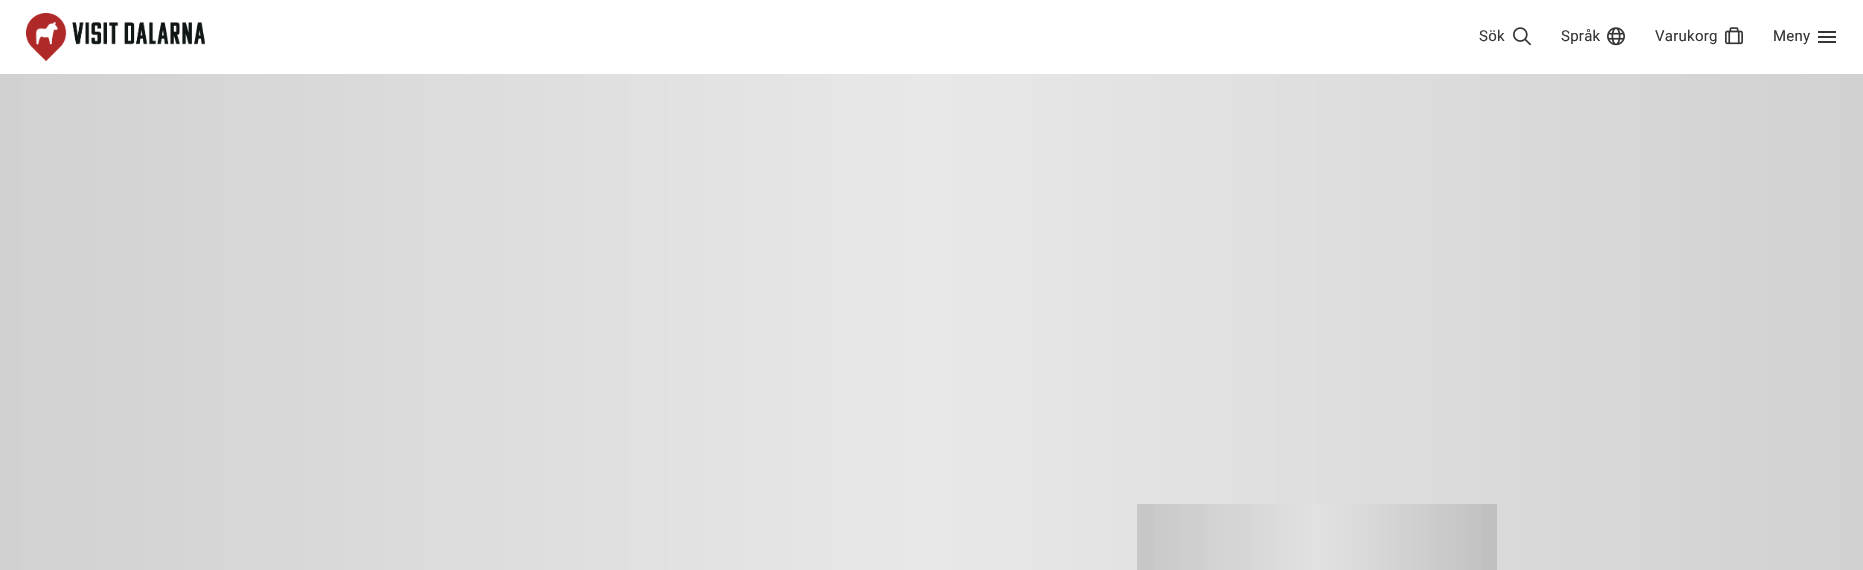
#include "include/core/SkBlurTypes.h"
#include "include/core/SkCanvas.h"
#include "include/core/SkData.h"
#include "include/core/SkFont.h"
#include "include/core/SkFontMgr.h"
#include "include/core/SkImage.h"
#include "include/core/SkMaskFilter.h"
#include "include/core/SkPaint.h"
#include "include/core/SkPathBuilder.h"
#include "include/core/SkTextBlob.h"
#include "include/effects/SkDashPathEffect.h"
#include "include/effects/SkGradientShader.h"
#include "include/utils/SkParsePath.h"

extern sk_sp<SkFontMgr> fontMgr;

void draw(SkCanvas* canvas) {
    SkPaint p;
    p.setAntiAlias(true);
    auto font = [&](const char* family, int weight, float size, bool italic = false) {
        SkFontStyle style(weight, SkFontStyle::kNormal_Width,
            italic ? SkFontStyle::kItalic_Slant : SkFontStyle::kUpright_Slant);
        SkFont result(fontMgr->matchFamilyStyle(family, style), size);
        result.setSubpixel(true);
        return result;
    };
    auto drawTracked = [&](const char* s, float x, float y, const SkFont& font, const SkPaint& ink, float letter, float word) {
        std::vector<SkGlyphID> glyphs(font.countText(s, strlen(s), SkTextEncoding::kUTF8));
        std::vector<float> xs(glyphs.size());
        font.textToGlyphs(s, strlen(s), SkTextEncoding::kUTF8, glyphs);
        font.getXPos(glyphs, xs, x);
        float extra = 0;
        for (size_t i = 0; i < glyphs.size(); i++) {
            xs[i] += extra;
            extra += letter + word * (glyphs[i] == font.unicharToGlyph(' '));
        }
        canvas->drawTextBlob(SkTextBlob::MakeFromPosHGlyphs(glyphs, xs, y, font), 0, 0, ink);
    };
    auto drawPhoto = [&](const char* path, float l, float t, float r, float b) {
        auto image = SkImages::DeferredFromEncodedData(SkData::MakeFromFileName(path));
        canvas->drawImageRect(image, SkRect::MakeLTRB(l, t, r, b), SkSamplingOptions());
    };
    canvas->clear(0xFFFFFFFF);
    drawPhoto("media/1.png", 26, 13, 205, 61);
    auto font1 = font("Roboto", 400, 15);
    p.setColor(0xFF373636);
    drawTracked("Sök", 1479, 41, font1, p, 0.25f, 0);
    drawPhoto("media/2.png", 1513, 27, 1531, 46);
    drawTracked("Språk", 1561, 41, font1, p, 0.25f, 0);
    drawPhoto("media/3.png", 1607, 27, 1625, 46);
    drawTracked("Varukorg", 1655, 41, font1, p, 0.25f, 0);
    drawPhoto("media/4.png", 1725, 27, 1743, 45);
    drawTracked("Meny", 1773, 41, font1, p, 0.25f, 0);
    {
        const struct { float l, t, r, b; SkColor color; } items[] = {
            {1818, 31, 1836, 33, 0xFF373636},
            {1818, 36, 1836, 38, 0xFF373636},
            {1818, 41, 1836, 43, 0xFF373636},
        };
        for (auto [l, t, r, b, color] : items) {
            p.setColor(color);
            canvas->drawRect(SkRect::MakeLTRB(l, t, r, b), p);
        }
    }
    {
        const SkColor colors[] = {0xFFD1D1D1, 0xFFE8E8E8, 0xFFD1D1D1};
        const float stops[] = {0, 0.5f, 1};
        const SkPoint ends[] = {{0, 324}, {1863, 324}};
        p.setShader(SkGradientShader::MakeLinear(ends, colors, stops, 3, SkTileMode::kClamp));
        p.setAlpha(255);
    }
    canvas->drawRect(SkRect::MakeLTRB(0, 74, 1863, 570), p);
    {
        const SkColor colors[] = {0xFFB8B8B8, 0xFFCCCCCC, 0xFFB8B8B8};
        const float stops[] = {0, 0.5f, 1};
        const SkPoint ends[] = {{0, 324}, {1863, 324}};
        p.setShader(SkGradientShader::MakeLinear(ends, colors, stops, 3, SkTileMode::kClamp));
        p.setAlpha(255);
    }
    canvas->drawRect(SkRect::MakeLTRB(1137, 504, 1497, 570), p);
    {
        const SkColor colors[] = {0x00FFFFFF, 0x80FFFFFF, 0x00FFFFFF};
        const float stops[] = {0, 0.5f, 1};
        const SkPoint ends[] = {{1137, 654}, {1497, 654}};
        p.setShader(SkGradientShader::MakeLinear(ends, colors, stops, 3, SkTileMode::kClamp));
        p.setAlpha(255);
    }
    canvas->drawRect(SkRect::MakeLTRB(1153, 504, 1482, 570), p);
}
